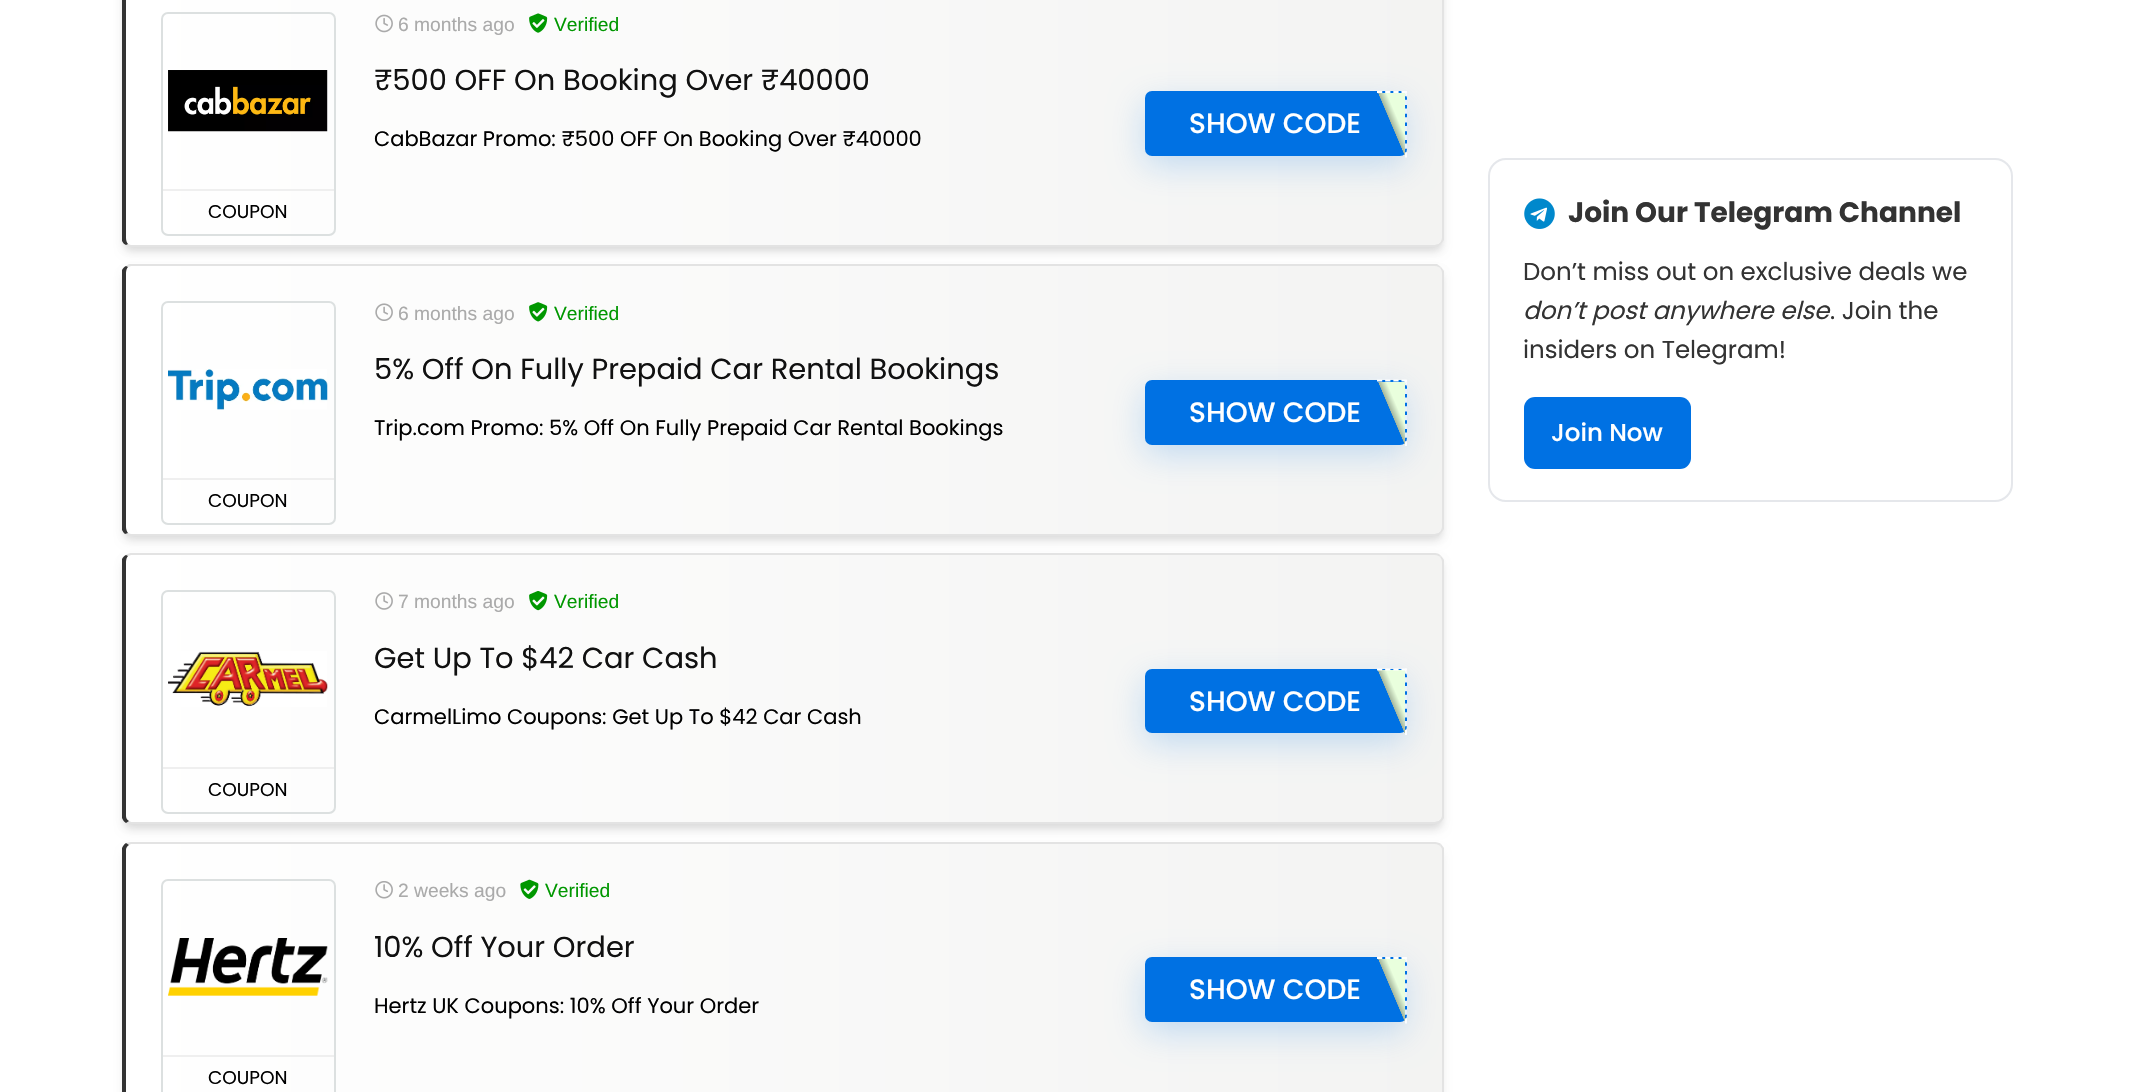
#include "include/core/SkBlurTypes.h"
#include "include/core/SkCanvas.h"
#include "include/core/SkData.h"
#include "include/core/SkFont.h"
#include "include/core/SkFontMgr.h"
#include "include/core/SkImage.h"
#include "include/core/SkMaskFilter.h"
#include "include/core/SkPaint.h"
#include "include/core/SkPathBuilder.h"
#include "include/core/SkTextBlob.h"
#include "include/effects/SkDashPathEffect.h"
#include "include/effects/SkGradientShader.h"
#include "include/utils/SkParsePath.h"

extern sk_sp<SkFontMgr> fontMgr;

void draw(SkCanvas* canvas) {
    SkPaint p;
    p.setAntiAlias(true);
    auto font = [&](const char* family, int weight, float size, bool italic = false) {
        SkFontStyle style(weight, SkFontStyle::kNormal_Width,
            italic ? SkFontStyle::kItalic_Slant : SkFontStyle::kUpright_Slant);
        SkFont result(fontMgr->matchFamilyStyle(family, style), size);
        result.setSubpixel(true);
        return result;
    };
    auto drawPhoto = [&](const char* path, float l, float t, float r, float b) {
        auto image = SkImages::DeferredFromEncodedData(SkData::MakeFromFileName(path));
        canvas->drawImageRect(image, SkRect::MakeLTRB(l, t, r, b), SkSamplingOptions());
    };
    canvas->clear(0xFFFFFFFF);
    p.setColor(0x0F000000);
    p.setMaskFilter(SkMaskFilter::MakeBlur(kNormal_SkBlurStyle, 3.5f));
    canvas->drawRoundRect(SkRect::MakeLTRB(124, -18, 1442, 249), 7, 7, p);
    p.setMaskFilter(nullptr);
    p.setColor(0x1A000000);
    p.setMaskFilter(SkMaskFilter::MakeBlur(kNormal_SkBlurStyle, 5));
    canvas->drawRoundRect(SkRect::MakeLTRB(124, -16, 1442, 252), 7, 7, p);
    p.setMaskFilter(nullptr);
    {
        const SkColor colors[] = {0xFFFFFFFF, 0xFFF3F3F2};
        const float stops[] = {0, 1};
        const SkPoint ends[] = {{126, 111}, {1442, 111}};
        p.setShader(SkGradientShader::MakeLinear(ends, colors, stops, 2, SkTileMode::kClamp));
        p.setAlpha(255);
    }
    canvas->drawPath(SkPathBuilder().moveTo(131, -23).lineTo(1435, -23).cubicTo(1439, -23, 1442, -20, 1442, -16).lineTo(1442, 238).cubicTo(1442, 242, 1439, 245, 1435, 245).lineTo(131, 245).cubicTo(128, 245, 126, 242, 126, 238).lineTo(126, -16).cubicTo(126, -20, 128, -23, 131, -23).close().detach(), p);
    p.setShader(nullptr);
    p.setColor(0xFFE3E3E3);
    canvas->drawPath(SkPathBuilder().moveTo(1441, -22).cubicTo(1442, -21, 1444, -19, 1444, -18).lineTo(1444, 240).lineTo(1441, 244).lineTo(1440, 243).cubicTo(1441, 242, 1442, 240, 1442, 238).lineTo(1442, -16).cubicTo(1442, -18, 1441, -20, 1440, -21).close().detach(), p);
    canvas->drawPath(SkPathBuilder().moveTo(129, 247).lineTo(126, 245).lineTo(128, 244).cubicTo(129, 245, 130, 245, 131, 245).lineTo(1435, 245).cubicTo(1437, 245, 1439, 244, 1440, 243).lineTo(1441, 244).lineTo(1437, 247).close().detach(), p);
    p.setColor(0xFF333333);
    canvas->drawPath(SkPathBuilder().moveTo(122, -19).cubicTo(123, -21, 124, -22, 126, -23).lineTo(128, -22).cubicTo(127, -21, 126, -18, 126, -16).lineTo(126, 238).cubicTo(126, 241, 127, 243, 128, 244).lineTo(126, 245).cubicTo(124, 244, 123, 243, 122, 241).close().detach(), p);
    drawPhoto("media/1.png", 375, 14, 393, 33);
    auto font1 = font("Liberation Sans", 400, 19.25f);
    p.setColor(0xFFAAAAAA);
    canvas->drawString("6 months ago", 398, 31, font1, p);
    drawPhoto("media/2.png", 529, 13, 548, 33);
    p.setColor(0xFF009700);
    canvas->drawString("Verified", 554, 31, font1, p);
    auto font2 = font("Poppins", 400, 28.9f);
    p.setColor(0xFF111111);
    canvas->drawString("₹500 OFF On Booking Over ₹40000", 374, 90, font2, p);
    p.setColor(0x330071E3);
    p.setMaskFilter(SkMaskFilter::MakeBlur(kNormal_SkBlurStyle, 16.5f));
    canvas->drawRoundRect(SkRect::MakeLTRB(1143, 102, 1405, 166), 7, 7, p);
    p.setMaskFilter(nullptr);
    p.setColor(0xFF0071E3);
    canvas->drawRoundRect(SkRect::MakeLTRB(1145, 91, 1407, 156), 7, 7, p);
    auto font3 = font("Poppins", 500, 28);
    p.setColor(0xFFFFFFFF);
    canvas->drawString("SHOW CODE", 1189, 133, font3, p);
    {
        const SkColor colors[] = {0x00000000, 0x00A6B79D, 0xFFA6B79D, 0xFFE9FFDD};
        const float stops[] = {0, 0.5f, 0.51f, 0.66f};
        const SkPoint ends[] = {{1368, 135}, {1415, 115}};
        p.setShader(SkGradientShader::MakeLinear(ends, colors, stops, 4, SkTileMode::kClamp));
        p.setAlpha(255);
    }
    canvas->drawRect(SkRect::MakeLTRB(1378, 93, 1405, 155), p);
    {
        const SkColor colors[] = {0x00000000, 0x00A6B79D, 0xFFA6B79D, 0xFFE9FFDD};
        const float stops[] = {0, 0.5f, 0.51f, 0.66f};
        const SkPoint ends[] = {{1396, 135}, {1443, 115}};
        p.setShader(SkGradientShader::MakeLinear(ends, colors, stops, 4, SkTileMode::kClamp));
        p.setAlpha(255);
    }
    canvas->drawRect(SkRect::MakeLTRB(1406, 93, 1407, 94), p);
    p.setStyle(SkPaint::kStroke_Style);
    p.setStrokeWidth(1.8f);
    p.setShader(nullptr);
    p.setColor(0xFFFFFFFF);
    p.setPathEffect(SkDashPathEffect::Make({{5.25f, 2.92f}}, 0));
    canvas->drawPath(SkPathBuilder().moveTo(1377, 92).lineTo(1407, 92).detach(), p);
    p.setPathEffect(nullptr);
    p.setPathEffect(SkDashPathEffect::Make({{5.25f, 3.5f}}, 0));
    canvas->drawPath(SkPathBuilder().moveTo(1406, 91).lineTo(1406, 157.5f).detach(), p);
    p.setPathEffect(nullptr);
    auto font4 = font("Poppins", 400, 21);
    p.setStyle(SkPaint::kFill_Style);
    p.setColor(0xFF000000);
    canvas->drawString("CabBazar Promo: ₹500 OFF On Booking Over ₹40000", 374, 146, font4, p);
    p.setStyle(SkPaint::kStroke_Style);
    p.setStrokeWidth(2);
    p.setColor(0xFFDCE0E0);
    canvas->drawRoundRect(SkRect::MakeLTRB(162, 13, 335, 235), 6, 6, p);
    drawPhoto("media/3.png", 168, 70, 328, 132);
    p.setStyle(SkPaint::kFill_Style);
    p.setColor(0xFFEFEFEF);
    canvas->drawRect(SkRect::MakeLTRB(163, 189, 334, 191), p);
    auto font5 = font("Poppins", 400, 18.5f);
    p.setColor(0xFF000000);
    canvas->drawString("COUPON", 208, 218, font5, p);
    p.setColor(0x0F000000);
    p.setMaskFilter(SkMaskFilter::MakeBlur(kNormal_SkBlurStyle, 3.5f));
    canvas->drawRoundRect(SkRect::MakeLTRB(124, 270, 1442, 537), 7, 7, p);
    p.setMaskFilter(nullptr);
    p.setColor(0x1A000000);
    p.setMaskFilter(SkMaskFilter::MakeBlur(kNormal_SkBlurStyle, 5));
    canvas->drawRoundRect(SkRect::MakeLTRB(124, 273, 1442, 541), 7, 7, p);
    p.setMaskFilter(nullptr);
    {
        const SkColor colors[] = {0xFFFFFFFF, 0xFFF3F3F2};
        const float stops[] = {0, 1};
        const SkPoint ends[] = {{126, 400}, {1442, 400}};
        p.setShader(SkGradientShader::MakeLinear(ends, colors, stops, 2, SkTileMode::kClamp));
        p.setAlpha(255);
    }
    canvas->drawPath(SkPathBuilder().moveTo(131, 266).lineTo(1435, 266).cubicTo(1439, 266, 1442, 269, 1442, 273).lineTo(1442, 527).cubicTo(1442, 531, 1439, 534, 1435, 534).lineTo(131, 534).cubicTo(128, 534, 126, 531, 126, 527).lineTo(126, 273).cubicTo(126, 269, 128, 266, 131, 266).close().detach(), p);
    p.setShader(nullptr);
    p.setColor(0xFFE3E3E3);
    canvas->drawPath(SkPathBuilder().moveTo(131, 266).lineTo(128, 267).lineTo(126, 266).lineTo(129, 264).lineTo(1437, 264).lineTo(1441, 267).lineTo(1440, 268).cubicTo(1439, 267, 1437, 266, 1435, 266).close().detach(), p);
    canvas->drawPath(SkPathBuilder().moveTo(1444, 529).lineTo(1441, 533).lineTo(1440, 532).cubicTo(1441, 531, 1442, 529, 1442, 527).lineTo(1442, 273).cubicTo(1442, 271, 1441, 269, 1440, 268).lineTo(1441, 267).lineTo(1444, 271).close().detach(), p);
    canvas->drawPath(SkPathBuilder().moveTo(128, 536).lineTo(125, 534).lineTo(128, 533).cubicTo(129, 534, 130, 534, 131, 534).lineTo(1435, 534).cubicTo(1437, 534, 1439, 533, 1440, 532).lineTo(1441, 533).lineTo(1438, 536).close().detach(), p);
    p.setColor(0xFF333333);
    canvas->drawPath(SkPathBuilder().moveTo(122, 270).cubicTo(123, 268, 124, 267, 126, 266).lineTo(128, 267).cubicTo(127, 268, 126, 270, 126, 273).lineTo(126, 527).cubicTo(126, 529, 127, 532, 128, 533).lineTo(125, 534).cubicTo(124, 533, 123, 532, 122, 530).close().detach(), p);
    drawPhoto("media/4.png", 375, 303, 393, 321);
    p.setColor(0xFFAAAAAA);
    canvas->drawString("6 months ago", 398, 320, font1, p);
    drawPhoto("media/5.png", 529, 302, 548, 322);
    p.setColor(0xFF009700);
    canvas->drawString("Verified", 554, 320, font1, p);
    p.setColor(0xFF111111);
    canvas->drawString("5% Off On Fully Prepaid Car Rental Bookings", 374, 379, font2, p);
    p.setColor(0x330071E3);
    p.setMaskFilter(SkMaskFilter::MakeBlur(kNormal_SkBlurStyle, 16.5f));
    canvas->drawRoundRect(SkRect::MakeLTRB(1143, 390, 1405, 455), 7, 7, p);
    p.setMaskFilter(nullptr);
    p.setColor(0xFF0071E3);
    canvas->drawRoundRect(SkRect::MakeLTRB(1145, 380, 1407, 445), 7, 7, p);
    p.setColor(0xFFFFFFFF);
    canvas->drawString("SHOW CODE", 1189, 422, font3, p);
    {
        const SkColor colors[] = {0x00000000, 0x00A6B79D, 0xFFA6B79D, 0xFFE9FFDD};
        const float stops[] = {0, 0.5f, 0.51f, 0.66f};
        const SkPoint ends[] = {{1368, 424}, {1415, 404}};
        p.setShader(SkGradientShader::MakeLinear(ends, colors, stops, 4, SkTileMode::kClamp));
        p.setAlpha(255);
    }
    canvas->drawRect(SkRect::MakeLTRB(1378, 382, 1405, 444), p);
    {
        const SkColor colors[] = {0x00000000, 0x00A6B79D, 0xFFA6B79D, 0xFFE9FFDD};
        const float stops[] = {0, 0.5f, 0.51f, 0.66f};
        const SkPoint ends[] = {{1396, 424}, {1443, 404}};
        p.setShader(SkGradientShader::MakeLinear(ends, colors, stops, 4, SkTileMode::kClamp));
        p.setAlpha(255);
    }
    canvas->drawRect(SkRect::MakeLTRB(1406, 382, 1407, 383), p);
    p.setStyle(SkPaint::kStroke_Style);
    p.setStrokeWidth(1.8f);
    p.setShader(nullptr);
    p.setColor(0xFFFFFFFF);
    p.setPathEffect(SkDashPathEffect::Make({{5.25f, 2.92f}}, 0));
    canvas->drawPath(SkPathBuilder().moveTo(1377, 380.5f).lineTo(1407, 380.5f).detach(), p);
    p.setPathEffect(nullptr);
    p.setPathEffect(SkDashPathEffect::Make({{5.25f, 3.5f}}, 0));
    canvas->drawPath(SkPathBuilder().moveTo(1406, 380).lineTo(1406, 446).detach(), p);
    p.setPathEffect(nullptr);
    p.setStyle(SkPaint::kFill_Style);
    p.setColor(0xFF000000);
    canvas->drawString("Trip.com Promo: 5% Off On Fully Prepaid Car Rental Bookings", 374, 435, font4, p);
    p.setStyle(SkPaint::kStroke_Style);
    p.setStrokeWidth(2);
    p.setColor(0xFFDCE0E0);
    canvas->drawRoundRect(SkRect::MakeLTRB(162, 302, 335, 524), 6, 6, p);
    drawPhoto("media/6.png", 168, 369, 328, 410);
    p.setStyle(SkPaint::kFill_Style);
    p.setColor(0xFFEFEFEF);
    canvas->drawRect(SkRect::MakeLTRB(163, 478, 334, 480), p);
    p.setColor(0xFF000000);
    canvas->drawString("COUPON", 208, 507, font5, p);
    p.setColor(0x0F000000);
    p.setMaskFilter(SkMaskFilter::MakeBlur(kNormal_SkBlurStyle, 3.5f));
    canvas->drawRoundRect(SkRect::MakeLTRB(124, 558, 1442, 826), 7, 7, p);
    p.setMaskFilter(nullptr);
    p.setColor(0x1A000000);
    p.setMaskFilter(SkMaskFilter::MakeBlur(kNormal_SkBlurStyle, 5));
    canvas->drawRoundRect(SkRect::MakeLTRB(124, 562, 1442, 830), 7, 7, p);
    p.setMaskFilter(nullptr);
    {
        const SkColor colors[] = {0xFFFFFFFF, 0xFFF3F3F2};
        const float stops[] = {0, 1};
        const SkPoint ends[] = {{126, 689}, {1442, 689}};
        p.setShader(SkGradientShader::MakeLinear(ends, colors, stops, 2, SkTileMode::kClamp));
        p.setAlpha(255);
    }
    canvas->drawPath(SkPathBuilder().moveTo(131, 555).lineTo(1435, 555).cubicTo(1439, 555, 1442, 558, 1442, 562).lineTo(1442, 816).cubicTo(1442, 819, 1439, 822, 1435, 822).lineTo(131, 822).cubicTo(128, 822, 126, 819, 126, 816).lineTo(126, 562).cubicTo(126, 558, 128, 555, 131, 555).close().detach(), p);
    p.setShader(nullptr);
    p.setColor(0xFFE3E3E3);
    canvas->drawPath(SkPathBuilder().moveTo(131, 553).cubicTo(129, 553, 127, 554, 126, 555).lineTo(128, 556).lineTo(131, 555).lineTo(1435, 555).cubicTo(1437, 555, 1439, 556, 1440, 557).lineTo(1441, 556).cubicTo(1440, 554, 1437, 553, 1435, 553).close().detach(), p);
    canvas->drawPath(SkPathBuilder().moveTo(1444, 818).lineTo(1441, 822).lineTo(1440, 820).cubicTo(1441, 819, 1442, 818, 1442, 816).lineTo(1442, 562).cubicTo(1442, 560, 1441, 558, 1440, 557).lineTo(1441, 556).cubicTo(1442, 557, 1443, 558, 1444, 560).close().detach(), p);
    canvas->drawPath(SkPathBuilder().moveTo(1441, 822).cubicTo(1440, 823, 1437, 824, 1435, 824).lineTo(131, 824).cubicTo(129, 824, 127, 823, 126, 823).lineTo(129, 821).lineTo(131, 822).lineTo(1435, 822).cubicTo(1437, 822, 1439, 821, 1440, 820).close().detach(), p);
    p.setColor(0xFF333333);
    canvas->drawPath(SkPathBuilder().moveTo(122, 559).cubicTo(123, 557, 124, 556, 126, 555).lineTo(128, 556).cubicTo(127, 557, 126, 559, 126, 562).lineTo(126, 816).cubicTo(126, 818, 127, 820, 129, 821).lineTo(126, 823).cubicTo(124, 822, 123, 820, 122, 818).close().detach(), p);
    drawPhoto("media/7.png", 375, 592, 393, 610);
    p.setColor(0xFFAAAAAA);
    canvas->drawString("7 months ago", 398, 608, font1, p);
    drawPhoto("media/8.png", 529, 591, 548, 611);
    p.setColor(0xFF009700);
    canvas->drawString("Verified", 554, 608, font1, p);
    p.setColor(0xFF111111);
    canvas->drawString("Get Up To $42 Car Cash", 374, 668, font2, p);
    p.setColor(0x330071E3);
    p.setMaskFilter(SkMaskFilter::MakeBlur(kNormal_SkBlurStyle, 16.5f));
    canvas->drawRoundRect(SkRect::MakeLTRB(1143, 679, 1405, 744), 7, 7, p);
    p.setMaskFilter(nullptr);
    p.setColor(0xFF0071E3);
    canvas->drawRoundRect(SkRect::MakeLTRB(1145, 669, 1407, 733), 7, 7, p);
    p.setColor(0xFFFFFFFF);
    canvas->drawString("SHOW CODE", 1189, 711, font3, p);
    {
        const SkColor colors[] = {0x00000000, 0x00A6B79D, 0xFFA6B79D, 0xFFE9FFDD};
        const float stops[] = {0, 0.5f, 0.51f, 0.66f};
        const SkPoint ends[] = {{1368, 713}, {1415, 693}};
        p.setShader(SkGradientShader::MakeLinear(ends, colors, stops, 4, SkTileMode::kClamp));
        p.setAlpha(255);
    }
    canvas->drawRect(SkRect::MakeLTRB(1378, 670, 1405, 733), p);
    {
        const SkColor colors[] = {0x00000000, 0x00A6B79D, 0xFFA6B79D, 0xFFE9FFDD};
        const float stops[] = {0, 0.5f, 0.51f, 0.66f};
        const SkPoint ends[] = {{1396, 713}, {1443, 693}};
        p.setShader(SkGradientShader::MakeLinear(ends, colors, stops, 4, SkTileMode::kClamp));
        p.setAlpha(255);
    }
    canvas->drawRect(SkRect::MakeLTRB(1406, 670, 1407, 672), p);
    p.setStyle(SkPaint::kStroke_Style);
    p.setStrokeWidth(1.8f);
    p.setShader(nullptr);
    p.setColor(0xFFFFFFFF);
    p.setPathEffect(SkDashPathEffect::Make({{5.25f, 2.92f}}, 0));
    canvas->drawPath(SkPathBuilder().moveTo(1377, 669.5f).lineTo(1407, 669.5f).detach(), p);
    p.setPathEffect(nullptr);
    p.setPathEffect(SkDashPathEffect::Make({{5.25f, 3.5f}}, 0));
    canvas->drawPath(SkPathBuilder().moveTo(1406, 668.5f).lineTo(1406, 735).detach(), p);
    p.setPathEffect(nullptr);
    p.setStyle(SkPaint::kFill_Style);
    p.setColor(0xFF000000);
    canvas->drawString("CarmelLimo Coupons: Get Up To $42 Car Cash", 374, 724, font4, p);
    p.setStyle(SkPaint::kStroke_Style);
    p.setStrokeWidth(2);
    p.setColor(0xFFDCE0E0);
    canvas->drawRoundRect(SkRect::MakeLTRB(162, 591, 335, 813), 6, 6, p);
    drawPhoto("media/9.png", 168, 651, 328, 707);
    p.setStyle(SkPaint::kFill_Style);
    p.setColor(0xFFEFEFEF);
    canvas->drawRect(SkRect::MakeLTRB(163, 767, 334, 769), p);
    p.setColor(0xFF000000);
    canvas->drawString("COUPON", 208, 796, font5, p);
    p.setColor(0x1A000000);
    p.setMaskFilter(SkMaskFilter::MakeBlur(kNormal_SkBlurStyle, 5));
    canvas->drawRoundRect(SkRect::MakeLTRB(124, 851, 1442, 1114), 7, 7, p);
    p.setMaskFilter(nullptr);
    {
        const SkColor colors[] = {0xFFFFFFFF, 0xFFF3F3F2};
        const float stops[] = {0, 1};
        const SkPoint ends[] = {{126, 977}, {1442, 977}};
        p.setShader(SkGradientShader::MakeLinear(ends, colors, stops, 2, SkTileMode::kClamp));
        p.setAlpha(255);
    }
    canvas->drawPath(SkPathBuilder().moveTo(131, 844).lineTo(1435, 844).cubicTo(1439, 844, 1442, 847, 1442, 850).lineTo(1442, 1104).cubicTo(1442, 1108, 1439, 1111, 1435, 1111).lineTo(131, 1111).cubicTo(128, 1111, 126, 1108, 126, 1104).lineTo(126, 850).cubicTo(126, 847, 128, 844, 131, 844).close().detach(), p);
    p.setShader(nullptr);
    p.setColor(0xFFE3E3E3);
    canvas->drawPath(SkPathBuilder().moveTo(131, 842).cubicTo(129, 842, 127, 843, 126, 843).lineTo(129, 845).lineTo(131, 844).lineTo(1435, 844).cubicTo(1437, 844, 1439, 845, 1440, 846).lineTo(1441, 844).cubicTo(1440, 843, 1437, 842, 1435, 842).close().detach(), p);
    canvas->drawPath(SkPathBuilder().moveTo(1441, 844).lineTo(1444, 848).lineTo(1444, 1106).cubicTo(1444, 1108, 1442, 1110, 1441, 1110).lineTo(1440, 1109).cubicTo(1441, 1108, 1442, 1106, 1442, 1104).lineTo(1442, 850).cubicTo(1442, 848, 1441, 847, 1440, 846).close().detach(), p);
    p.setColor(0xFF333333);
    canvas->drawPath(SkPathBuilder().moveTo(122, 848).cubicTo(123, 846, 124, 844, 126, 843).lineTo(129, 845).cubicTo(127, 846, 126, 848, 126, 850).lineTo(126, 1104).cubicTo(126, 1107, 127, 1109, 128, 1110).lineTo(126, 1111).cubicTo(124, 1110, 123, 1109, 122, 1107).close().detach(), p);
    drawPhoto("media/10.png", 375, 881, 393, 899);
    p.setColor(0xFFAAAAAA);
    canvas->drawString("2 weeks ago", 398, 897, font1, p);
    drawPhoto("media/11.png", 520, 879, 539, 899);
    p.setColor(0xFF009700);
    canvas->drawString("Verified", 545, 897, font1, p);
    p.setColor(0xFF111111);
    canvas->drawString("10% Off Your Order", 374, 957, font2, p);
    p.setColor(0x330071E3);
    p.setMaskFilter(SkMaskFilter::MakeBlur(kNormal_SkBlurStyle, 16.5f));
    canvas->drawRoundRect(SkRect::MakeLTRB(1143, 968, 1405, 1033), 7, 7, p);
    p.setMaskFilter(nullptr);
    p.setColor(0xFF0071E3);
    canvas->drawRoundRect(SkRect::MakeLTRB(1145, 957, 1407, 1022), 7, 7, p);
    p.setColor(0xFFFFFFFF);
    canvas->drawString("SHOW CODE", 1189, 999, font3, p);
    {
        const SkColor colors[] = {0x00000000, 0x00A6B79D, 0xFFA6B79D, 0xFFE9FFDD};
        const float stops[] = {0, 0.5f, 0.51f, 0.66f};
        const SkPoint ends[] = {{1368, 937}, {1415, 917}};
        p.setShader(SkGradientShader::MakeLinear(ends, colors, stops, 4, SkTileMode::kClamp));
        p.setAlpha(255);
    }
    canvas->drawRect(SkRect::MakeLTRB(1404, 957, 1405, 958), p);
    {
        const SkColor colors[] = {0x00000000, 0x00A6B79D, 0xFFA6B79D, 0xFFE9FFDD};
        const float stops[] = {0, 0.5f, 0.51f, 0.66f};
        const SkPoint ends[] = {{1368, 1001}, {1415, 981}};
        p.setShader(SkGradientShader::MakeLinear(ends, colors, stops, 4, SkTileMode::kClamp));
        p.setAlpha(255);
    }
    canvas->drawRect(SkRect::MakeLTRB(1378, 959, 1405, 1021), p);
    {
        const SkColor colors[] = {0x00000000, 0x00A6B79D, 0xFFA6B79D, 0xFFE9FFDD};
        const float stops[] = {0, 0.5f, 0.51f, 0.66f};
        const SkPoint ends[] = {{1396, 1001}, {1443, 981}};
        p.setShader(SkGradientShader::MakeLinear(ends, colors, stops, 4, SkTileMode::kClamp));
        p.setAlpha(255);
    }
    canvas->drawRect(SkRect::MakeLTRB(1406, 959, 1407, 960), p);
    p.setStyle(SkPaint::kStroke_Style);
    p.setStrokeWidth(1.8f);
    p.setShader(nullptr);
    p.setColor(0xFFFFFFFF);
    p.setPathEffect(SkDashPathEffect::Make({{5.25f, 2.92f}}, 0));
    canvas->drawPath(SkPathBuilder().moveTo(1377, 958).lineTo(1407, 958).detach(), p);
    p.setPathEffect(nullptr);
    p.setPathEffect(SkDashPathEffect::Make({{5.25f, 3.5f}}, 0));
    canvas->drawPath(SkPathBuilder().moveTo(1406, 957).lineTo(1406, 1024).detach(), p);
    p.setPathEffect(nullptr);
    p.setStyle(SkPaint::kFill_Style);
    p.setColor(0xFF000000);
    canvas->drawString("Hertz UK Coupons: 10% Off Your Order", 374, 1013, font4, p);
    p.setStyle(SkPaint::kStroke_Style);
    p.setStrokeWidth(2);
    p.setColor(0xFFDCE0E0);
    canvas->drawRoundRect(SkRect::MakeLTRB(162, 880, 335, 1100), 6, 6, p);
    drawPhoto("media/12.png", 168, 938, 328, 996);
    p.setStyle(SkPaint::kFill_Style);
    p.setColor(0xFFEFEFEF);
    canvas->drawRect(SkRect::MakeLTRB(163, 1055, 334, 1057), p);
    p.setColor(0xFF000000);
    canvas->drawString("COUPON", 208, 1084, font5, p);
    p.setStyle(SkPaint::kStroke_Style);
    p.setColor(0xFFE5E7EB);
    canvas->drawRoundRect(SkRect::MakeLTRB(1489, 159, 2012, 501), 17, 17, p);
    drawPhoto("media/13.png", 1524, 198, 1555, 229);
    auto font6 = font("Poppins", 700, 28);
    p.setStyle(SkPaint::kFill_Style);
    p.setColor(0xFF333333);
    canvas->drawString("Join Our Telegram Channel", 1568, 222, font6, p);
    auto font7 = font("Poppins", 400, 24.5f);
    canvas->drawString("Don’t miss out on exclusive deals we", 1523, 280, font7, p);
    auto font8 = font("Poppins", 400, 24.5f, true);
    canvas->drawString("don’t post anywhere else", 1523, 319, font8, p);
    canvas->drawString(". Join the", 1830, 319, font7, p);
    canvas->drawString("insiders on Telegram!", 1523, 358, font7, p);
    p.setColor(0xFF0071E3);
    canvas->drawRoundRect(SkRect::MakeLTRB(1524, 397, 1691, 469), 11, 11, p);
    auto font9 = font("Poppins", 500, 24.5f);
    p.setColor(0xFFFFFFFF);
    canvas->drawString("Join Now", 1551, 441, font9, p);
}
